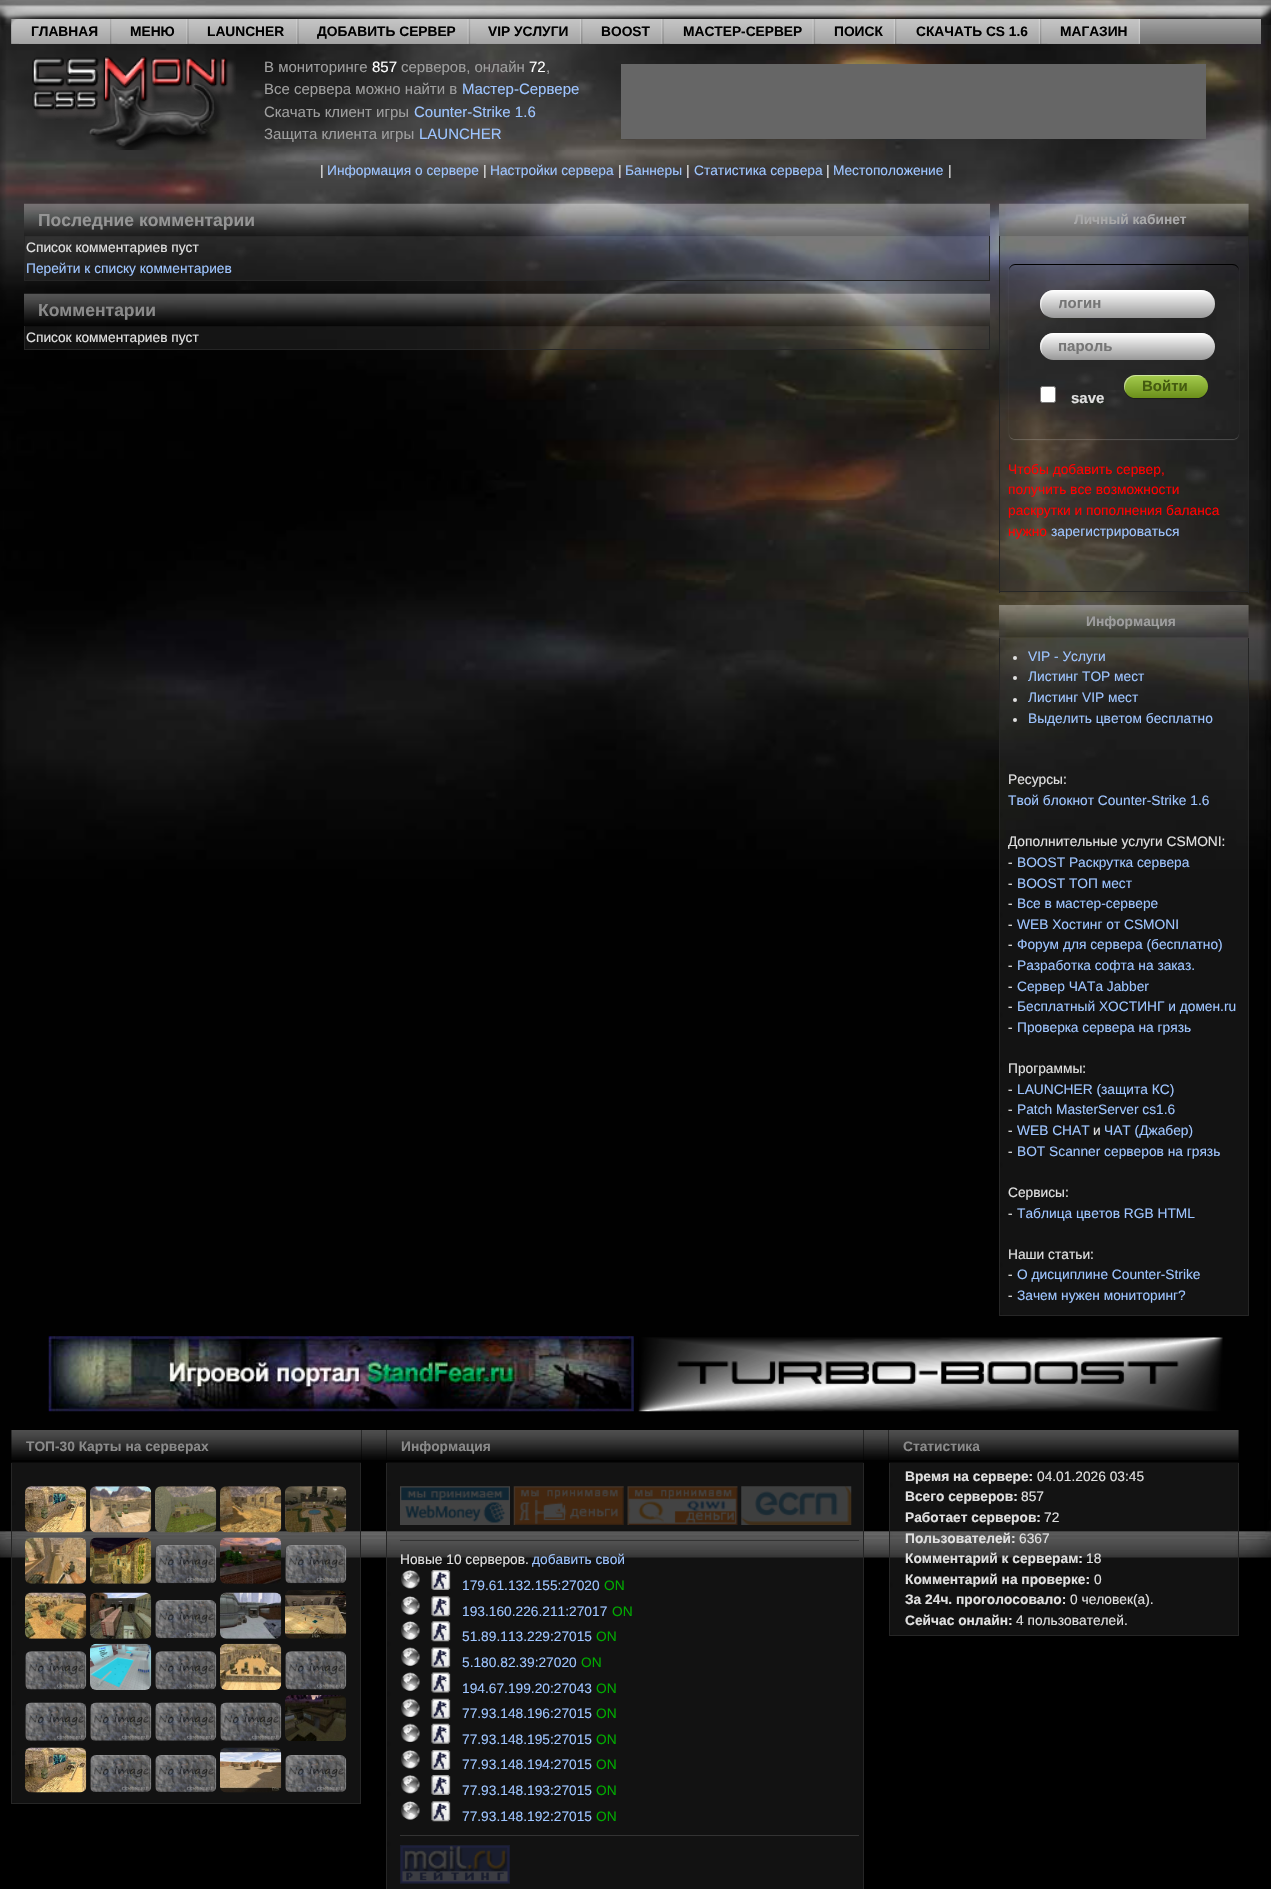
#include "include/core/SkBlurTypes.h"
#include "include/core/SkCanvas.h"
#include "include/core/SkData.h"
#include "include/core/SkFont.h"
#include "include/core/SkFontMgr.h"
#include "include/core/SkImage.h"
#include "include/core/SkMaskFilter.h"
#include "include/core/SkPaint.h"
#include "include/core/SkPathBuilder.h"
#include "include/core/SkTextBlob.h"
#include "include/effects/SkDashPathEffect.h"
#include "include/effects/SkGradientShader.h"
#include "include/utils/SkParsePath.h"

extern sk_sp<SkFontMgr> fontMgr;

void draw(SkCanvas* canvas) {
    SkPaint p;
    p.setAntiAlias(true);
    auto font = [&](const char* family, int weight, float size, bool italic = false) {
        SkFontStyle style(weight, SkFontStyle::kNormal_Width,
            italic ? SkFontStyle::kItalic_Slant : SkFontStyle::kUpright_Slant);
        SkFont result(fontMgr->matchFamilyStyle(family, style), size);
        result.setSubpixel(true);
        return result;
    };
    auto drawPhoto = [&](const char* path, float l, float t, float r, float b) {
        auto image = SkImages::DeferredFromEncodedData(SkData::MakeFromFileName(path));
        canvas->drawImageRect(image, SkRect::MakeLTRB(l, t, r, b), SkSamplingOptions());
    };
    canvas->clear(0xFF000000);
    drawPhoto("media/1.png", 0, 25, 1271, 1558);
    drawPhoto("media/2.png", 0, 0, 1271, 25);
    drawPhoto("media/3.png", 11, 19, 1261, 44);
    drawPhoto("media/4.png", 11, 19, 110, 44);
    p.setColor(0xFFA2A2A2);
    canvas->drawRect(SkRect::MakeLTRB(19, 43, 110, 44), p);
    auto font1 = font("Liberation Sans", 700, 13.75f);
    p.setColor(0xFF000000);
    canvas->drawString("ГЛАВНАЯ", 31, 36, font1, p);
    drawPhoto("media/5.png", 110, 19, 188, 44);
    drawPhoto("media/6.png", 117, 19, 188, 44);
    canvas->drawString("МЕНЮ", 130, 36, font1, p);
    drawPhoto("media/7.png", 187, 19, 298, 44);
    drawPhoto("media/8.png", 195, 19, 298, 44);
    canvas->drawString("LAUNCHER", 207, 36, font1, p);
    drawPhoto("media/9.png", 297, 19, 469, 44);
    drawPhoto("media/10.png", 305, 19, 469, 44);
    canvas->drawString("ДОБАВИТЬ СЕРВЕР", 317, 36, font1, p);
    drawPhoto("media/11.png", 468, 19, 582, 44);
    drawPhoto("media/12.png", 476, 19, 582, 44);
    canvas->drawString("VIP УСЛУГИ", 488, 36, font1, p);
    drawPhoto("media/13.png", 581, 19, 663, 44);
    drawPhoto("media/14.png", 589, 19, 663, 44);
    canvas->drawString("BOOST", 601, 36, font1, p);
    drawPhoto("media/15.png", 662, 19, 814, 44);
    drawPhoto("media/16.png", 670, 19, 814, 44);
    canvas->drawString("МАСТЕР-СЕРВЕР", 683, 36, font1, p);
    drawPhoto("media/17.png", 813, 19, 895, 44);
    drawPhoto("media/18.png", 821, 19, 895, 44);
    canvas->drawString("ПОИСК", 834, 36, font1, p);
    drawPhoto("media/19.png", 895, 19, 1040, 44);
    drawPhoto("media/20.png", 902, 19, 1040, 44);
    canvas->drawString("СКАЧАТЬ CS 1.6", 916, 36, font1, p);
    drawPhoto("media/21.png", 1040, 19, 1140, 44);
    drawPhoto("media/22.png", 1047, 19, 1140, 44);
    canvas->drawString("МАГАЗИН", 1060, 36, font1, p);
    drawPhoto("media/23.png", 32, 56, 236, 150);
    auto font2 = font("Liberation Sans", 400, 15);
    p.setColor(0xFF9E9E9E);
    canvas->drawString("В мониторинге", 264, 72, font2, p);
    p.setColor(0xFFFFFFFF);
    canvas->drawString("857", 372, 72, font2, p);
    p.setColor(0xFF9E9E9E);
    canvas->drawString("серверов, онлайн", 401, 72, font2, p);
    p.setColor(0xFFFFFFFF);
    canvas->drawString("72", 529, 72, font2, p);
    p.setColor(0xFF9E9E9E);
    canvas->drawString(",", 546, 72, font2, p);
    canvas->drawString("Все сервера можно найти в", 264, 94, font2, p);
    p.setColor(0xFF9DC4FF);
    canvas->drawString("Мастер-Сервере", 462, 94, font2, p);
    p.setColor(0xFF9E9E9E);
    canvas->drawString("Скачать клиент игры", 264, 117, font2, p);
    p.setColor(0xFF9DC4FF);
    canvas->drawString("Counter-Strike 1.6", 414, 117, font2, p);
    p.setColor(0xFF9E9E9E);
    canvas->drawString("Защита клиента игры", 264, 139, font2, p);
    p.setColor(0xFF9DC4FF);
    canvas->drawString("LAUNCHER", 419, 139, font2, p);
    p.setColor(0xFF666666);
    canvas->drawRect(SkRect::MakeLTRB(621, 64, 1206, 139), p);
    auto font3 = font("Liberation Sans", 400, 13.75f);
    p.setColor(0xFFE0E0E0);
    canvas->drawString("|", 320, 175, font3, p);
    p.setColor(0xFF9DC4FF);
    canvas->drawString("Информация о сервере", 327, 175, font3, p);
    p.setColor(0xFFE0E0E0);
    canvas->drawString("|", 483, 175, font3, p);
    p.setColor(0xFF9DC4FF);
    canvas->drawString("Настройки сервера", 490, 175, font3, p);
    p.setColor(0xFFE0E0E0);
    canvas->drawString("|", 618, 175, font3, p);
    p.setColor(0xFF9DC4FF);
    canvas->drawString("Баннеры", 625, 175, font3, p);
    p.setColor(0xFFE0E0E0);
    canvas->drawString("|", 686, 175, font3, p);
    p.setColor(0xFF9DC4FF);
    canvas->drawString("Статистика сервера", 694, 175, font3, p);
    p.setColor(0xFFE0E0E0);
    canvas->drawString("|", 826, 175, font3, p);
    p.setColor(0xFF9DC4FF);
    canvas->drawString("Местоположение", 833, 175, font3, p);
    p.setColor(0xFFE0E0E0);
    canvas->drawString("|", 948, 175, font3, p);
    drawPhoto("media/24.png", 24, 203, 990, 237);
    auto font4 = font("Liberation Sans", 700, 17.5f);
    p.setColor(0xFF959595);
    canvas->drawString("Последние комментарии", 38, 226, font4, p);
    drawPhoto("media/25.png", 25, 236, 989, 280);
    {
        const struct { float l, t, r, b; SkColor color; } items[] = {
            {989, 236, 990, 281, 0xFF262626},
            {24, 280, 990, 281, 0xFF262626},
            {24, 236, 25, 281, 0xFF262626},
        };
        for (auto [l, t, r, b, color] : items) {
            p.setColor(color);
            canvas->drawRect(SkRect::MakeLTRB(l, t, r, b), p);
        }
    }
    p.setColor(0xFFE0E0E0);
    canvas->drawString("Список комментариев пуст", 26, 252, font3, p);
    p.setColor(0xFF9DC4FF);
    canvas->drawString("Перейти к списку комментариев", 26, 273, font3, p);
    drawPhoto("media/26.png", 24, 293, 990, 327);
    p.setColor(0xFF8A8A8A);
    canvas->drawString("Комментарии", 38, 316, font4, p);
    drawPhoto("media/27.png", 25, 326, 989, 349);
    {
        const struct { float l, t, r, b; SkColor color; } items[] = {
            {989, 326, 990, 350, 0xFF262626},
            {24, 349, 990, 350, 0xFF262626},
            {24, 326, 25, 350, 0xFF262626},
        };
        for (auto [l, t, r, b, color] : items) {
            p.setColor(color);
            canvas->drawRect(SkRect::MakeLTRB(l, t, r, b), p);
        }
    }
    p.setColor(0xFFE0E0E0);
    canvas->drawString("Список комментариев пуст", 26, 342, font3, p);
    drawPhoto("media/28.png", 999, 203, 1249, 237);
    p.setColor(0xFFA9A9AA);
    canvas->drawString("Личный кабинет", 1074, 224, font1, p);
    drawPhoto("media/29.png", 1000, 236, 1248, 591);
    {
        const struct { float l, t, r, b; SkColor color; } items[] = {
            {1248, 236, 1249, 593, 0xFF262626},
            {999, 591, 1249, 592, 0xFF262626},
            {999, 236, 1000, 593, 0xFF262626},
        };
        for (auto [l, t, r, b, color] : items) {
            p.setColor(color);
            canvas->drawRect(SkRect::MakeLTRB(l, t, r, b), p);
        }
    }
    canvas->save();
    canvas->clipPath(SkPathBuilder(SkPathFillType::kEvenOdd).moveTo(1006, 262).lineTo(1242, 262).lineTo(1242, 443).lineTo(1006, 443).close().moveTo(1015, 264).lineTo(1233, 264).cubicTo(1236.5f, 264, 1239, 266.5f, 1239, 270).lineTo(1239, 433).cubicTo(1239, 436.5f, 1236.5f, 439, 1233, 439).lineTo(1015, 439).cubicTo(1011.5f, 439, 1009, 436.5f, 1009, 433).lineTo(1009, 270).cubicTo(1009, 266.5f, 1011.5f, 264, 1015, 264).close().detach(), true);
    p.setColor(0x33FFFFFF);
    p.setMaskFilter(SkMaskFilter::MakeBlur(kNormal_SkBlurStyle, 0.5f));
    canvas->drawRoundRect(SkRect::MakeLTRB(1009, 265, 1239, 440), 6, 6, p);
    p.setMaskFilter(nullptr);
    canvas->restore();
    p.setColor(0xFF000000);
    canvas->drawPath(SkPathBuilder().moveTo(1015, 265).lineTo(1232, 265).cubicTo(1236, 265, 1239, 268, 1239, 271).lineTo(1239, 270).cubicTo(1239, 267, 1236, 264, 1233, 264).lineTo(1015, 264).cubicTo(1012, 264, 1009, 267, 1009, 270).lineTo(1009, 271).cubicTo(1009, 268, 1012, 265, 1015, 265).close().detach(), p);
    {
        const SkColor colors[] = {0xFFFFFFFF, 0xFF989898};
        const float stops[] = {0, 1};
        const SkPoint ends[] = {{1128, 290}, {1128, 318}};
        p.setShader(SkGradientShader::MakeLinear(ends, colors, stops, 2, SkTileMode::kClamp));
        p.setAlpha(255);
    }
    canvas->drawRoundRect(SkRect::MakeLTRB(1040, 290, 1215, 318), 14, 14, p);
    p.setShader(nullptr);
    p.setColor(0x99FFFFFF);
    canvas->drawPath(SkPathBuilder().moveTo(1055, 291).lineTo(1205, 292).cubicTo(1208, 292, 1211, 294, 1213, 296).cubicTo(1210, 292, 1206, 290, 1201, 290).lineTo(1054, 290).cubicTo(1046, 290, 1040, 296, 1040, 304).cubicTo(1040, 310, 1043, 315, 1048, 317).cubicTo(1037, 311, 1040, 291, 1055, 291).close().detach(), p);
    canvas->save();
    canvas->clipRect(SkRect::MakeLTRB(1059, 295, 1196, 313));
    auto font5 = font("Liberation Sans", 700, 15);
    p.setColor(0xFF757575);
    canvas->drawString("логин", 1058, 308, font5, p);
    canvas->restore();
    {
        const SkColor colors[] = {0xFFFFFFFF, 0xFF989898};
        const float stops[] = {0, 1};
        const SkPoint ends[] = {{1128, 333}, {1128, 360}};
        p.setShader(SkGradientShader::MakeLinear(ends, colors, stops, 2, SkTileMode::kClamp));
        p.setAlpha(255);
    }
    canvas->drawRoundRect(SkRect::MakeLTRB(1040, 333, 1215, 360), 13.5f, 13.5f, p);
    p.setShader(nullptr);
    p.setColor(0x99FFFFFF);
    canvas->drawPath(SkPathBuilder().moveTo(1055, 334).lineTo(1205, 334).cubicTo(1208, 335, 1210, 336, 1211, 337).cubicTo(1209, 335, 1205, 333, 1202, 333).lineTo(1054, 333).cubicTo(1046, 333, 1040, 339, 1040, 346).cubicTo(1040, 350, 1041, 353, 1044, 356).cubicTo(1038, 348, 1043, 334, 1055, 334).close().detach(), p);
    p.setColor(0xFF757575);
    canvas->drawString("пароль", 1058, 351, font5, p);
    p.setColor(0x4D000000);
    p.setMaskFilter(SkMaskFilter::MakeBlur(kNormal_SkBlurStyle, 0.5f));
    canvas->drawRoundRect(SkRect::MakeLTRB(1124, 376, 1208, 399), 11.5f, 11.5f, p);
    p.setMaskFilter(nullptr);
    {
        const SkColor colors[] = {0xFFA5CD4E, 0xFF6B8F1A};
        const float stops[] = {0, 1};
        const SkPoint ends[] = {{1166, 375}, {1166, 398}};
        p.setShader(SkGradientShader::MakeLinear(ends, colors, stops, 2, SkTileMode::kClamp));
        p.setAlpha(255);
    }
    canvas->drawRoundRect(SkRect::MakeLTRB(1124, 375, 1208, 398), 11.5f, 11.5f, p);
    p.setShader(nullptr);
    p.setColor(0x73FFFFFF);
    canvas->drawPath(SkPathBuilder().moveTo(1136, 376).lineTo(1198, 376).cubicTo(1200, 376, 1203, 377, 1204, 378).cubicTo(1202, 376, 1200, 375, 1196, 375).lineTo(1136, 375).cubicTo(1129, 375, 1124, 380, 1124, 386).cubicTo(1124, 389, 1125, 392, 1127, 394).cubicTo(1122, 387, 1127, 376, 1136, 376).close().detach(), p);
    p.setColor(0xFF445B0F);
    canvas->drawString("Войти", 1142, 391, font5, p);
    p.setColor(0xFFFFFFFF);
    canvas->drawRoundRect(SkRect::MakeLTRB(1040.5f, 386.5f, 1055.5f, 402.5f), 2, 2, p);
    p.setStyle(SkPaint::kStroke_Style);
    p.setStrokeWidth(1);
    p.setColor(0xFF767676);
    canvas->drawRoundRect(SkRect::MakeLTRB(1040.5f, 386.5f, 1055.5f, 402.5f), 2, 2, p);
    p.setStyle(SkPaint::kFill_Style);
    p.setColor(0xFFE0E0E0);
    canvas->drawString("save", 1071, 403, font5, p);
    p.setColor(0xFFFF0000);
    {
        const struct { const char* s; float x, y; } items[] = {
            {"Чтобы добавить сервер,", 1008, 474},
            {"получить все возможности", 1008, 494},
            {"раскрутки и пополнения баланса", 1008, 515},
            {"нужно", 1008, 536},
        };
        for (auto [s, x, y] : items) {
            canvas->drawString(s, x, y, font3, p);
        }
    }
    p.setColor(0xFF9DC4FF);
    canvas->drawString("зарегистрироваться", 1051, 536, font3, p);
    drawPhoto("media/30.png", 999, 605, 1249, 638);
    p.setColor(0xFF9E9E9E);
    canvas->drawString("Информация", 1086, 626, font1, p);
    drawPhoto("media/31.png", 1000, 638, 1248, 1315);
    {
        const struct { float l, t, r, b; SkColor color; } items[] = {
            {1248, 638, 1249, 1316, 0xFF262626},
            {999, 1315, 1249, 1316, 0xFF262626},
            {999, 638, 1000, 1316, 0xFF262626},
        };
        for (auto [l, t, r, b, color] : items) {
            p.setColor(color);
            canvas->drawRect(SkRect::MakeLTRB(l, t, r, b), p);
        }
    }
    p.setColor(0xFFE0E0E0);
    canvas->drawCircle(1015, 658, 2, p);
    p.setColor(0xFF9DC4FF);
    canvas->drawString("VIP - Услуги", 1028, 661, font3, p);
    p.setColor(0xFFE0E0E0);
    canvas->drawCircle(1015, 678, 2, p);
    p.setColor(0xFF9DC4FF);
    canvas->drawString("Листинг TOP мест", 1028, 681, font3, p);
    p.setColor(0xFFE0E0E0);
    canvas->drawCircle(1015, 700, 2, p);
    p.setColor(0xFF9DC4FF);
    canvas->drawString("Листинг VIP мест", 1028, 702, font3, p);
    p.setColor(0xFFE0E0E0);
    canvas->drawCircle(1015, 720, 2, p);
    p.setColor(0xFF9DC4FF);
    canvas->drawString("Выделить цветом бесплатно", 1028, 723, font3, p);
    p.setColor(0xFFE0E0E0);
    canvas->drawString("Ресурсы:", 1008, 784, font3, p);
    p.setColor(0xFF9DC4FF);
    canvas->drawString("Твой блокнот Counter-Strike 1.6", 1008, 805, font3, p);
    p.setColor(0xFFE0E0E0);
    canvas->drawString("Дополнительные услуги CSMONI:", 1008, 846, font3, p);
    canvas->drawString("-", 1008, 867, font3, p);
    p.setColor(0xFF9DC4FF);
    canvas->drawString("BOOST Раскрутка сервера", 1017, 867, font3, p);
    p.setColor(0xFFE0E0E0);
    canvas->drawString("-", 1008, 888, font3, p);
    p.setColor(0xFF9DC4FF);
    canvas->drawString("BOOST ТОП мест", 1017, 888, font3, p);
    p.setColor(0xFFE0E0E0);
    canvas->drawString("-", 1008, 908, font3, p);
    p.setColor(0xFF9DC4FF);
    canvas->drawString("Все в мастер-сервере", 1017, 908, font3, p);
    p.setColor(0xFFE0E0E0);
    canvas->drawString("-", 1008, 929, font3, p);
    p.setColor(0xFF9DC4FF);
    canvas->drawString("WEB Хостинг от CSMONI", 1017, 929, font3, p);
    p.setColor(0xFFE0E0E0);
    canvas->drawString("-", 1008, 949, font3, p);
    p.setColor(0xFF9DC4FF);
    canvas->drawString("Форум для сервера (бесплатно)", 1017, 949, font3, p);
    p.setColor(0xFFE0E0E0);
    canvas->drawString("-", 1008, 970, font3, p);
    p.setColor(0xFF9DC4FF);
    canvas->drawString("Разработка софта на заказ.", 1017, 970, font3, p);
    p.setColor(0xFFE0E0E0);
    canvas->drawString("-", 1008, 991, font3, p);
    p.setColor(0xFF9DC4FF);
    canvas->drawString("Сервер ЧАТа Jabber", 1017, 991, font3, p);
    p.setColor(0xFFE0E0E0);
    canvas->drawString("-", 1008, 1011, font3, p);
    p.setColor(0xFF9DC4FF);
    canvas->drawString("Бесплатный ХОСТИНГ и домен.ru", 1017, 1011, font3, p);
    p.setColor(0xFFE0E0E0);
    canvas->drawString("-", 1008, 1032, font3, p);
    p.setColor(0xFF9DC4FF);
    canvas->drawString("Проверка сервера на грязь", 1017, 1032, font3, p);
    p.setColor(0xFFE0E0E0);
    canvas->drawString("Программы:", 1008, 1073, font3, p);
    canvas->drawString("-", 1008, 1094, font3, p);
    p.setColor(0xFF9DC4FF);
    canvas->drawString("LAUNCHER (защита КС)", 1017, 1094, font3, p);
    p.setColor(0xFFE0E0E0);
    canvas->drawString("-", 1008, 1114, font3, p);
    p.setColor(0xFF9DC4FF);
    canvas->drawString("Patch MasterServer cs1.6", 1017, 1114, font3, p);
    p.setColor(0xFFE0E0E0);
    canvas->drawString("-", 1008, 1135, font3, p);
    p.setColor(0xFF9DC4FF);
    canvas->drawString("WEB CHAT", 1017, 1135, font3, p);
    p.setColor(0xFFE0E0E0);
    canvas->drawString("и", 1093, 1135, font3, p);
    p.setColor(0xFF9DC4FF);
    canvas->drawString("ЧАТ (Джабер)", 1104, 1135, font3, p);
    p.setColor(0xFFE0E0E0);
    canvas->drawString("-", 1008, 1156, font3, p);
    p.setColor(0xFF9DC4FF);
    canvas->drawString("BOT Scanner серверов на грязь", 1017, 1156, font3, p);
    p.setColor(0xFFE0E0E0);
    canvas->drawString("Сервисы:", 1008, 1197, font3, p);
    canvas->drawString("-", 1008, 1218, font3, p);
    p.setColor(0xFF9DC4FF);
    canvas->drawString("Таблица цветов RGB HTML", 1017, 1218, font3, p);
    p.setColor(0xFFE0E0E0);
    canvas->drawString("Наши статьи:", 1008, 1259, font3, p);
    canvas->drawString("-", 1008, 1279, font3, p);
    p.setColor(0xFF9DC4FF);
    canvas->drawString("О дисциплине Counter-Strike", 1017, 1279, font3, p);
    p.setColor(0xFFE0E0E0);
    canvas->drawString("-", 1008, 1300, font3, p);
    p.setColor(0xFF9DC4FF);
    canvas->drawString("Зачем нужен мониторинг?", 1017, 1300, font3, p);
    drawPhoto("media/32.png", 48, 1336, 634, 1412);
    drawPhoto("media/33.png", 638, 1337, 1223, 1412);
    drawPhoto("media/34.png", 11, 1430, 361, 1460);
    p.setColor(0xFF8A8A8A);
    canvas->drawString("ТОП-30 Карты на серверах", 26, 1451, font1, p);
    drawPhoto("media/35.png", 11, 1462, 361, 1803);
    {
        const struct { float l, t, r, b; SkColor color; } items[] = {
            {360, 1463, 361, 1804, 0xFF262626},
            {11, 1803, 361, 1804, 0xFF262626},
            {11, 1463, 12, 1804, 0xFF262626},
        };
        for (auto [l, t, r, b, color] : items) {
            p.setColor(color);
            canvas->drawRect(SkRect::MakeLTRB(l, t, r, b), p);
        }
    }
    drawPhoto("media/36.png", 25, 1486, 87, 1533);
    drawPhoto("media/37.png", 90, 1486, 152, 1533);
    drawPhoto("media/38.png", 155, 1486, 217, 1533);
    drawPhoto("media/39.png", 220, 1486, 282, 1533);
    drawPhoto("media/40.png", 285, 1486, 347, 1533);
    drawPhoto("media/41.png", 25, 1537, 87, 1584);
    drawPhoto("media/42.png", 90, 1537, 152, 1584);
    drawPhoto("media/43.png", 155, 1545, 217, 1584);
    drawPhoto("media/44.png", 220, 1537, 282, 1584);
    drawPhoto("media/45.png", 285, 1545, 347, 1584);
    drawPhoto("media/46.png", 25, 1592, 87, 1639);
    drawPhoto("media/47.png", 90, 1592, 152, 1639);
    drawPhoto("media/48.png", 155, 1600, 217, 1639);
    drawPhoto("media/49.png", 220, 1592, 282, 1639);
    drawPhoto("media/50.png", 285, 1590, 347, 1639);
    drawPhoto("media/51.png", 25, 1651, 87, 1690);
    drawPhoto("media/52.png", 90, 1643, 152, 1690);
    drawPhoto("media/53.png", 155, 1651, 217, 1690);
    drawPhoto("media/54.png", 220, 1643, 282, 1690);
    drawPhoto("media/51.png", 285, 1651, 347, 1690);
    drawPhoto("media/55.png", 25, 1702, 87, 1741);
    drawPhoto("media/56.png", 90, 1702, 152, 1741);
    drawPhoto("media/57.png", 155, 1702, 217, 1741);
    drawPhoto("media/58.png", 220, 1702, 282, 1741);
    drawPhoto("media/59.png", 285, 1695, 346, 1741);
    drawPhoto("media/60.png", 25, 1747, 87, 1793);
    drawPhoto("media/61.png", 90, 1755, 152, 1792);
    drawPhoto("media/61.png", 155, 1755, 217, 1792);
    drawPhoto("media/62.png", 220, 1747, 282, 1793);
    drawPhoto("media/63.png", 285, 1755, 347, 1792);
    drawPhoto("media/64.png", 361, 1430, 386, 1460);
    drawPhoto("media/65.png", 386, 1430, 864, 1460);
    p.setColor(0xFF8A8A8A);
    canvas->drawString("Информация", 401, 1451, font1, p);
    drawPhoto("media/66.png", 386, 1462, 864, 1889);
    p.setColor(0xFF262626);
    canvas->drawRect(SkRect::MakeLTRB(863, 1463, 864, 1889), p);
    canvas->drawRect(SkRect::MakeLTRB(386, 1463, 387, 1889), p);
    drawPhoto("media/67.png", 400, 1486, 510, 1525);
    drawPhoto("media/68.png", 513, 1486, 624, 1525);
    drawPhoto("media/69.png", 627, 1486, 738, 1525);
    drawPhoto("media/70.png", 741, 1486, 852, 1525);
    p.setColor(0xFF333333);
    canvas->drawRect(SkRect::MakeLTRB(400, 1540, 859, 1541), p);
    p.setColor(0xFFE0E0E0);
    canvas->drawString("Новые 10 серверов.", 400, 1564, font3, p);
    p.setColor(0xFF9DC4FF);
    canvas->drawString("добавить свой", 532, 1564, font3, p);
    drawPhoto("media/71.png", 401, 1570, 420, 1589);
    drawPhoto("media/72.png", 431, 1570, 451, 1590);
    canvas->drawString("179.61.132.155:27020", 462, 1590, font3, p);
    p.setColor(0xFF00AA00);
    canvas->drawString("ON", 604, 1590, font3, p);
    drawPhoto("media/73.png", 401, 1596, 420, 1615);
    drawPhoto("media/74.png", 431, 1596, 451, 1617);
    p.setColor(0xFF9DC4FF);
    canvas->drawString("193.160.226.211:27017", 462, 1616, font3, p);
    p.setColor(0xFF00AA00);
    canvas->drawString("ON", 612, 1616, font3, p);
    drawPhoto("media/73.png", 401, 1621, 420, 1640);
    drawPhoto("media/74.png", 431, 1621, 451, 1642);
    p.setColor(0xFF9DC4FF);
    canvas->drawString("51.89.113.229:27015", 462, 1641, font3, p);
    p.setColor(0xFF00AA00);
    canvas->drawString("ON", 596, 1641, font3, p);
    drawPhoto("media/75.png", 401, 1647, 420, 1667);
    drawPhoto("media/76.png", 431, 1647, 451, 1668);
    p.setColor(0xFF9DC4FF);
    canvas->drawString("5.180.82.39:27020", 462, 1667, font3, p);
    p.setColor(0xFF00AA00);
    canvas->drawString("ON", 581, 1667, font3, p);
    drawPhoto("media/77.png", 401, 1672, 420, 1692);
    drawPhoto("media/76.png", 431, 1672, 451, 1693);
    p.setColor(0xFF9DC4FF);
    canvas->drawString("194.67.199.20:27043", 462, 1693, font3, p);
    p.setColor(0xFF00AA00);
    canvas->drawString("ON", 596, 1693, font3, p);
    drawPhoto("media/78.png", 401, 1698, 420, 1718);
    drawPhoto("media/79.png", 431, 1698, 451, 1719);
    p.setColor(0xFF9DC4FF);
    canvas->drawString("77.93.148.196:27015", 462, 1718, font3, p);
    p.setColor(0xFF00AA00);
    canvas->drawString("ON", 596, 1718, font3, p);
    drawPhoto("media/78.png", 401, 1723, 420, 1743);
    drawPhoto("media/79.png", 431, 1723, 451, 1744);
    p.setColor(0xFF9DC4FF);
    canvas->drawString("77.93.148.195:27015", 462, 1744, font3, p);
    p.setColor(0xFF00AA00);
    canvas->drawString("ON", 596, 1744, font3, p);
    drawPhoto("media/71.png", 401, 1750, 420, 1769);
    drawPhoto("media/72.png", 431, 1750, 451, 1770);
    p.setColor(0xFF9DC4FF);
    canvas->drawString("77.93.148.194:27015", 462, 1769, font3, p);
    p.setColor(0xFF00AA00);
    canvas->drawString("ON", 596, 1769, font3, p);
    drawPhoto("media/71.png", 401, 1775, 420, 1794);
    drawPhoto("media/72.png", 431, 1775, 451, 1795);
    p.setColor(0xFF9DC4FF);
    canvas->drawString("77.93.148.193:27015", 462, 1795, font3, p);
    p.setColor(0xFF00AA00);
    canvas->drawString("ON", 596, 1795, font3, p);
    drawPhoto("media/73.png", 401, 1801, 420, 1820);
    drawPhoto("media/74.png", 431, 1801, 451, 1822);
    p.setColor(0xFF9DC4FF);
    canvas->drawString("77.93.148.192:27015", 462, 1821, font3, p);
    p.setColor(0xFF00AA00);
    canvas->drawString("ON", 596, 1821, font3, p);
    p.setColor(0xFF333333);
    canvas->drawRect(SkRect::MakeLTRB(400, 1835, 859, 1836), p);
    drawPhoto("media/80.png", 400, 1845, 510, 1884);
    drawPhoto("media/81.png", 864, 1430, 889, 1460);
    drawPhoto("media/82.png", 889, 1430, 1239, 1460);
    p.setColor(0xFF8A8A8A);
    canvas->drawString("Статистика", 903, 1451, font1, p);
    drawPhoto("media/83.png", 889, 1462, 1239, 1635);
    {
        const struct { float l, t, r, b; SkColor color; } items[] = {
            {1238, 1463, 1239, 1636, 0xFF262626},
            {889, 1635, 1239, 1636, 0xFF262626},
            {889, 1463, 890, 1636, 0xFF262626},
        };
        for (auto [l, t, r, b, color] : items) {
            p.setColor(color);
            canvas->drawRect(SkRect::MakeLTRB(l, t, r, b), p);
        }
    }
    p.setColor(0xFFE0E0E0);
    canvas->drawString("Время на сервере:", 905, 1481, font1, p);
    canvas->drawString("04.01.2026 03:45", 1037, 1481, font3, p);
    canvas->drawString("Всего серверов:", 905, 1501, font1, p);
    canvas->drawString("857", 1021, 1501, font3, p);
    canvas->drawString("Работает серверов:", 905, 1522, font1, p);
    canvas->drawString("72", 1044, 1522, font3, p);
    canvas->drawString("Пользователей:", 905, 1543, font1, p);
    canvas->drawString("6367", 1019, 1543, font3, p);
    canvas->drawString("Комментарий к серверам:", 905, 1563, font1, p);
    canvas->drawString("18", 1086, 1563, font3, p);
    canvas->drawString("Комментарий на проверке:", 905, 1584, font1, p);
    canvas->drawString("0", 1094, 1584, font3, p);
    canvas->drawString("За 24ч. проголосовало:", 905, 1604, font1, p);
    canvas->drawString("0 человек(а).", 1070, 1604, font3, p);
    canvas->drawString("Сейчас онлайн:", 905, 1625, font1, p);
    canvas->drawString("4 пользователей.", 1016, 1625, font3, p);
}
